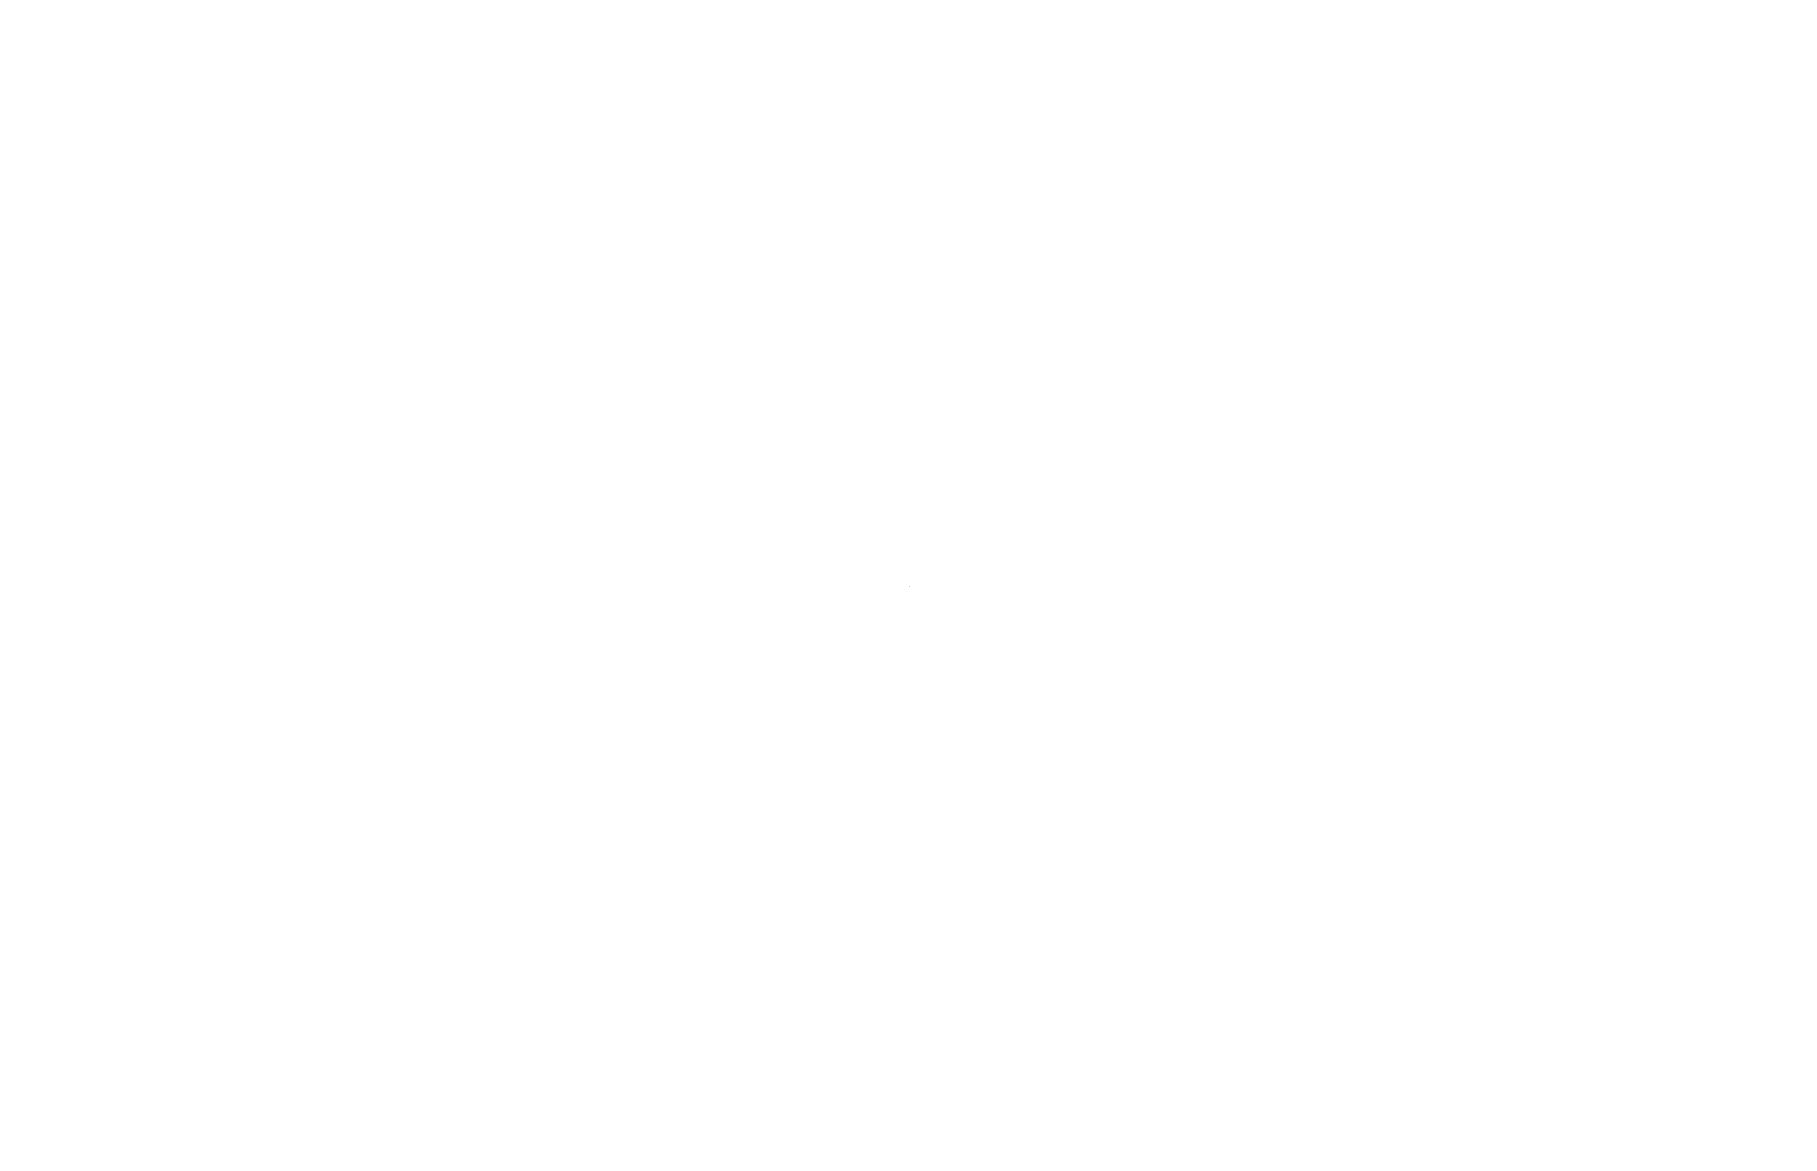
#include "include/core/SkBlurTypes.h"
#include "include/core/SkCanvas.h"
#include "include/core/SkData.h"
#include "include/core/SkFont.h"
#include "include/core/SkFontMgr.h"
#include "include/core/SkImage.h"
#include "include/core/SkMaskFilter.h"
#include "include/core/SkPaint.h"
#include "include/core/SkPathBuilder.h"
#include "include/core/SkTextBlob.h"
#include "include/effects/SkDashPathEffect.h"
#include "include/effects/SkGradientShader.h"
#include "include/utils/SkParsePath.h"

extern sk_sp<SkFontMgr> fontMgr;

void draw(SkCanvas* canvas) {
    SkPaint p;
    p.setAntiAlias(true);
    canvas->clear(0xFFFFFFFF);
    p.setColor(0xFFFC9E4F);
    canvas->drawCircle(909.5f, 586.5f, 0.5f, p);
}
